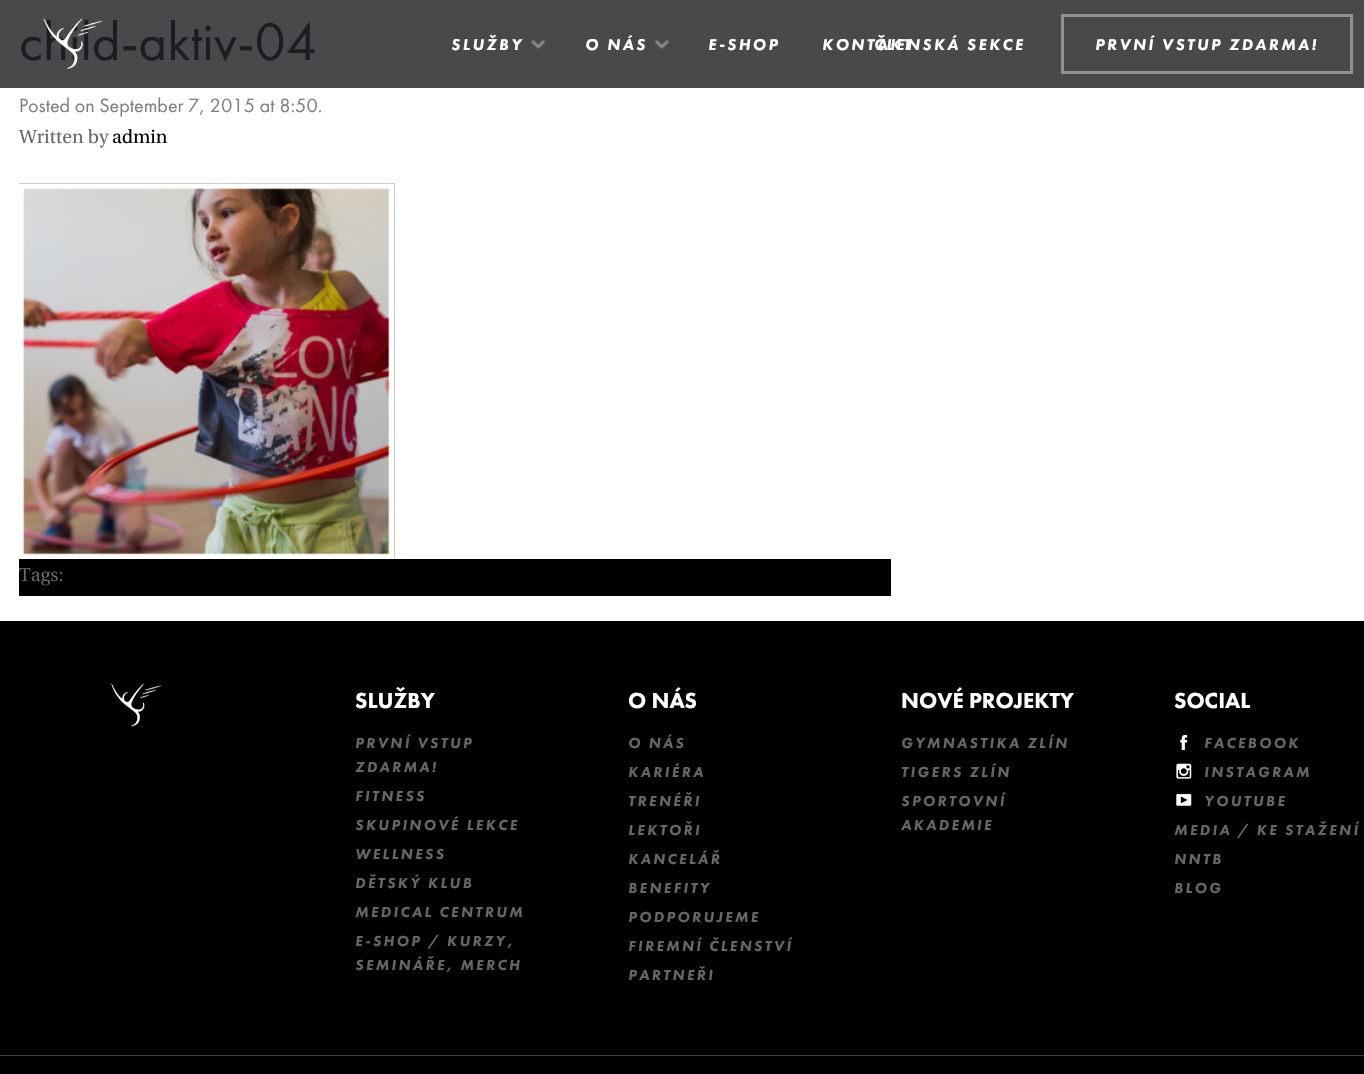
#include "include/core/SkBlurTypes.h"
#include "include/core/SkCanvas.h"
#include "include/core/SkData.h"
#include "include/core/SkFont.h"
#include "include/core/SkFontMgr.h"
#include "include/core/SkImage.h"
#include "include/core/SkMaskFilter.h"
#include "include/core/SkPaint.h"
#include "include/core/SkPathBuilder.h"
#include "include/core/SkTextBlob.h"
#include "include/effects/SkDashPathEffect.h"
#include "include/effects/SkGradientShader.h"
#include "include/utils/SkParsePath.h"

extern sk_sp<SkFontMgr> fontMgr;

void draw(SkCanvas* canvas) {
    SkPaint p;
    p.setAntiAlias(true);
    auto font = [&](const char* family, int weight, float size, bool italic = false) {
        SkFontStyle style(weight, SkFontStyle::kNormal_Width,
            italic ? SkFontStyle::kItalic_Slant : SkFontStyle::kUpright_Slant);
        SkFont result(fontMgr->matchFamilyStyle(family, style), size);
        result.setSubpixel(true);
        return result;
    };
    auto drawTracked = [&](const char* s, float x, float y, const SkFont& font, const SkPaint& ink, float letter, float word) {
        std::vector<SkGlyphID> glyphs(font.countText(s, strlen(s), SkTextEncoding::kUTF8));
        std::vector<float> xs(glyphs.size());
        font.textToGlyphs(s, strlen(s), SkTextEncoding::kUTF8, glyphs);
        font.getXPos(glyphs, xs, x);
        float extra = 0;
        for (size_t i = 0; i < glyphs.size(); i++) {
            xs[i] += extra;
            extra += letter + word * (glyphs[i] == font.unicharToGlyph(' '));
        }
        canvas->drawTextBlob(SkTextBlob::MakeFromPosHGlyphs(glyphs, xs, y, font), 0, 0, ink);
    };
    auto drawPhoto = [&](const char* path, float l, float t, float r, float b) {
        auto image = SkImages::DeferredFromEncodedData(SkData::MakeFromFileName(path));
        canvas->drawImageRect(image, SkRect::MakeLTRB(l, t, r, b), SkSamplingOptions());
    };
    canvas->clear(0xFFFFFFFF);
    p.setColor(0xFF49494C);
    canvas->drawRect(SkRect::MakeLTRB(0, 0, 1364, 88), p);
    auto font1 = font("Futura PT", 400, 55);
    p.setColor(0xFF1C1D20);
    canvas->drawString("child-aktiv-04", 19, 60, font1, p);
    auto font2 = font("Futura PT", 400, 20);
    p.setColor(0xFF808080);
    canvas->drawString("Posted on September 7, 2015 at 8:50.", 19, 112, font2, p);
    auto font3 = font("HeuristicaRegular", 400, 18.75f);
    p.setColor(0xFF666666);
    canvas->drawString("Written by", 19, 143, font3, p);
    p.setColor(0xFF000000);
    canvas->drawString("admin", 112, 143, font3, p);
    canvas->drawRect(SkRect::MakeLTRB(19, 559, 891, 596), p);
    canvas->save();
    canvas->clipRect(SkRect::MakeLTRB(19, 0, 891, 621));
    p.setStyle(SkPaint::kStroke_Style);
    p.setStrokeWidth(1);
    p.setColor(0x33000000);
    canvas->drawRect(SkRect::MakeLTRB(18.5f, 183.5f, 394.5f, 559.5f), p);
    canvas->restore();
    drawPhoto("media/1.png", 23, 188, 390, 555);
    p.setStyle(SkPaint::kFill_Style);
    p.setColor(0xFF666666);
    canvas->drawString("Tags:", 19, 581, font3, p);
    p.setColor(0xFF000000);
    canvas->drawRect(SkRect::MakeLTRB(0, 621, 1364, 1074), p);
    drawPhoto("media/2.png", 111, 683, 161, 727);
    auto font4 = font("Futura PT", 900, 22.5f);
    p.setColor(0xFFFFFFFF);
    canvas->drawString("SLUŽBY", 355, 708, font4, p);
    auto font5 = font("Futura PT", 900, 15, true);
    p.setColor(0xFF666666);
    {
        const struct { const char* s; float x, y; } items[] = {
            {"PRVNÍ VSTUP", 355, 748},
            {"ZDARMA!", 355, 772},
            {"FITNESS", 355, 801},
            {"SKUPINOVÉ LEKCE", 355, 830},
            {"WELLNESS", 355, 859},
            {"DĚTSKÝ KLUB", 355, 888},
            {"MEDICAL CENTRUM", 355, 917},
            {"E-SHOP / KURZY,", 355, 946},
            {"SEMINÁŘE, MERCH", 355, 970},
        };
        for (auto [s, x, y] : items) {
            drawTracked(s, x, y, font5, p, 2.4f, 0);
        }
    }
    p.setColor(0xFFFFFFFF);
    canvas->drawString("O NÁS", 628, 708, font4, p);
    p.setColor(0xFF666666);
    {
        const struct { const char* s; float x, y; } items[] = {
            {"O NÁS", 628, 748},
            {"KARIÉRA", 628, 777},
            {"TRENÉŘI", 628, 806},
            {"LEKTOŘI", 628, 835},
            {"KANCELÁŘ", 628, 864},
            {"BENEFITY", 628, 893},
            {"PODPORUJEME", 628, 922},
            {"FIREMNÍ ČLENSTVÍ", 628, 951},
            {"PARTNEŘI", 628, 980},
        };
        for (auto [s, x, y] : items) {
            drawTracked(s, x, y, font5, p, 2.4f, 0);
        }
    }
    p.setColor(0xFFFFFFFF);
    canvas->drawString("NOVÉ PROJEKTY", 901, 708, font4, p);
    p.setColor(0xFF666666);
    {
        const struct { const char* s; float x, y; } items[] = {
            {"GYMNASTIKA ZLÍN", 901, 748},
            {"TIGERS ZLÍN", 901, 777},
            {"SPORTOVNÍ", 901, 806},
            {"AKADEMIE", 901, 830},
        };
        for (auto [s, x, y] : items) {
            drawTracked(s, x, y, font5, p, 2.4f, 0);
        }
    }
    p.setColor(0xFFFFFFFF);
    canvas->drawString("SOCIAL", 1174, 708, font4, p);
    drawPhoto("media/3.png", 1180, 735, 1188, 750);
    p.setColor(0xFF666666);
    drawTracked("FACEBOOK", 1204, 748, font5, p, 2.4f, 0);
    drawPhoto("media/4.png", 1176, 763, 1192, 779);
    drawTracked("INSTAGRAM", 1204, 777, font5, p, 2.4f, 0);
    drawPhoto("media/5.png", 1176, 794, 1192, 806);
    {
        const struct { const char* s; float x, y; } items[] = {
            {"YOUTUBE", 1204, 806},
            {"MEDIA / KE STAŽENÍ", 1174, 835},
            {"NNTB", 1174, 864},
            {"BLOG", 1174, 893},
        };
        for (auto [s, x, y] : items) {
            drawTracked(s, x, y, font5, p, 2.4f, 0);
        }
    }
    p.setColor(0xFF3E3E3E);
    canvas->drawRect(SkRect::MakeLTRB(0, 1055, 1364, 1056), p);
    drawPhoto("media/6.png", 43, 18, 103, 69);
    auto font6 = font("Futura PT", 900, 16.25f, true);
    p.setColor(0xFFFFFFFF);
    drawTracked("SLUŽBY", 451, 50, font6, p, 2.5f, 0);
    drawPhoto("media/7.png", 531, 39, 546, 49);
    drawTracked("O NÁS", 585, 50, font6, p, 2.5f, 0);
    drawPhoto("media/8.png", 654, 39, 670, 49);
    {
        const struct { const char* s; float x, y; } items[] = {
            {"E-SHOP", 708, 50},
            {"KONTAKT", 822, 50},
            {"ČLENSKÁ SEKCE", 874, 50},
        };
        for (auto [s, x, y] : items) {
            drawTracked(s, x, y, font6, p, 2.5f, 0);
        }
    }
    p.setStyle(SkPaint::kStroke_Style);
    p.setStrokeWidth(3);
    p.setColor(0xFF929294);
    canvas->drawRect(SkRect::MakeLTRB(1062.5f, 15.5f, 1351.5f, 72.5f), p);
    p.setStyle(SkPaint::kFill_Style);
    p.setColor(0xFFFFFFFF);
    drawTracked("PRVNÍ VSTUP ZDARMA!", 1095, 50, font6, p, 2.5f, 0);
}
